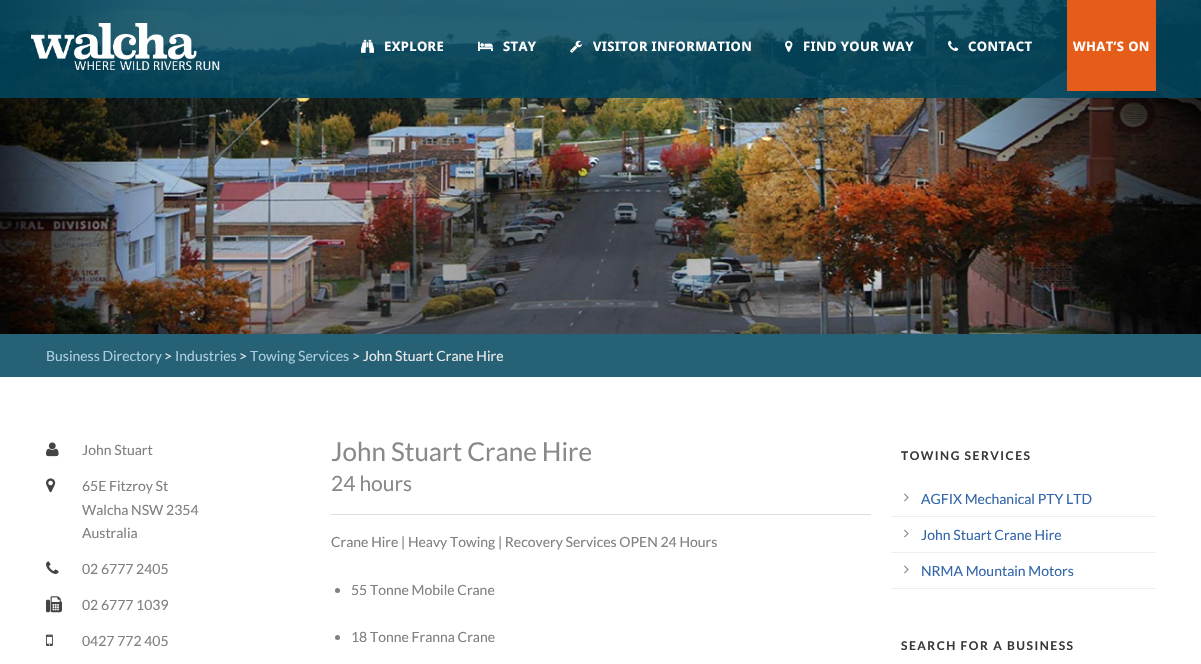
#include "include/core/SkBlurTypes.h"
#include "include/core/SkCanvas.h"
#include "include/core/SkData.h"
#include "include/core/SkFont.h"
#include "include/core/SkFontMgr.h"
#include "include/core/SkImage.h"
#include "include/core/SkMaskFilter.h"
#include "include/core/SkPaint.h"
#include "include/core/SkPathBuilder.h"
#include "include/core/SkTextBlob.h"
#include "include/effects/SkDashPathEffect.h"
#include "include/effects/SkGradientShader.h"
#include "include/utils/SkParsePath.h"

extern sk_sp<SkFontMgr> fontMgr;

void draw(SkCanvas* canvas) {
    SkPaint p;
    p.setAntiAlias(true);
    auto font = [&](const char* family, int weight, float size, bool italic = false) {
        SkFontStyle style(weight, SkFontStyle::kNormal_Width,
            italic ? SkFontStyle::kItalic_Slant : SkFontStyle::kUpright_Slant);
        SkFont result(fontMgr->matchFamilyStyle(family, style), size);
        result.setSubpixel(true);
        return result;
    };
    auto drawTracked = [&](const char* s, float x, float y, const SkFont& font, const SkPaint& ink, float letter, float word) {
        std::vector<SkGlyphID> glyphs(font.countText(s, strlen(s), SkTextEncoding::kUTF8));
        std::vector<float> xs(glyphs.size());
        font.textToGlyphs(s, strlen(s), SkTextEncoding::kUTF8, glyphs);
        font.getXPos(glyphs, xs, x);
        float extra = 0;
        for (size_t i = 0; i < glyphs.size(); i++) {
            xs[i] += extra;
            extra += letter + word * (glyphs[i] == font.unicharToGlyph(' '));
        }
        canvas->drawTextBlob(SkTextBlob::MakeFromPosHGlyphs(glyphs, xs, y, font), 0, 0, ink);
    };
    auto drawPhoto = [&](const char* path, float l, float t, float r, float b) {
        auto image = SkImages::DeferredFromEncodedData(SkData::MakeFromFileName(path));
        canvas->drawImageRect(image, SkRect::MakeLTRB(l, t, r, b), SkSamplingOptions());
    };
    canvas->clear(0xFFFFFFFF);
    drawPhoto("media/7.png", 0, 0, 1201, 334);
    p.setColor(0xD900455E);
    canvas->drawRect(SkRect::MakeLTRB(0, 0, 1201, 98), p);
    drawPhoto("media/1.png", 31, 23, 220, 70);
    drawPhoto("media/2.png", 361, 39, 374, 53);
    auto font1 = font("Noto Sans", 700, 13);
    p.setColor(0xFFFFFFFF);
    drawTracked("EXPLORE", 384, 51, font1, p, 0.4f, 0);
    drawPhoto("media/3.png", 478, 41, 493, 51);
    drawTracked("STAY", 503, 51, font1, p, 0.4f, 0);
    drawPhoto("media/4.png", 570, 40, 582, 53);
    drawTracked("VISITOR INFORMATION", 593, 51, font1, p, 0.4f, 0);
    drawPhoto("media/5.png", 785, 40, 793, 52);
    drawTracked("FIND YOUR WAY", 803, 51, font1, p, 0.4f, 0);
    drawPhoto("media/6.png", 948, 40, 959, 51);
    drawTracked("CONTACT", 968, 51, font1, p, 0.4f, 0);
    p.setColor(0xFFE55D19);
    canvas->drawRect(SkRect::MakeLTRB(1067, 0, 1156, 91), p);
    p.setColor(0xFFFFFFFF);
    drawTracked("WHAT’S ON", 1073, 51, font1, p, 0.4f, 0);
    p.setColor(0xFF266176);
    canvas->drawRect(SkRect::MakeLTRB(0, 334, 1201, 377), p);
    auto font2 = font("Lato", 400, 14);
    p.setColor(0xFFAACCDD);
    canvas->drawString("Business Directory", 46, 361, font2, p);
    p.setColor(0xFFE7E7E7);
    canvas->drawString(">", 164, 361, font2, p);
    p.setColor(0xFFAACCDD);
    canvas->drawString("Industries", 175, 361, font2, p);
    p.setColor(0xFFE7E7E7);
    canvas->drawString(">", 239, 361, font2, p);
    p.setColor(0xFFAACCDD);
    canvas->drawString("Towing Services", 250, 361, font2, p);
    p.setColor(0xFFE7E7E7);
    canvas->drawString("> John Stuart Crane Hire", 352, 361, font2, p);
    drawPhoto("media/8.png", 46, 442, 59, 457);
    p.setColor(0xFF808080);
    canvas->drawString("John Stuart", 82, 455, font2, p);
    drawPhoto("media/9.png", 46, 478, 56, 493);
    {
        const struct { const char* s; float x, y; } items[] = {
            {"65E Fitzroy St", 82, 491},
            {"Walcha NSW 2354", 82, 515},
            {"Australia", 82, 538},
        };
        for (auto [s, x, y] : items) {
            canvas->drawString(s, x, y, font2, p);
        }
    }
    drawPhoto("media/10.png", 46, 561, 59, 574);
    canvas->drawString("02 6777 2405", 82, 574, font2, p);
    drawPhoto("media/11.png", 46, 596, 62, 613);
    canvas->drawString("02 6777 1039", 82, 610, font2, p);
    drawPhoto("media/12.png", 46, 634, 53, 646);
    canvas->drawString("0427 772 405", 82, 646, font2, p);
    auto font3 = font("Lato", 400, 26);
    p.setColor(0xFF898989);
    canvas->drawString("John Stuart Crane Hire", 331, 461, font3, p);
    auto font4 = font("Lato", 400, 21);
    canvas->drawString("24 hours", 331, 491, font4, p);
    p.setColor(0xFFDDDDDD);
    canvas->drawRect(SkRect::MakeLTRB(331, 514, 871, 515), p);
    p.setColor(0xFF808080);
    canvas->drawString("Crane Hire | Heavy Towing | Recovery Services OPEN 24 Hours", 331, 547, font2, p);
    canvas->drawCircle(337.5f, 590.5f, 2.5f, p);
    canvas->drawString("55 Tonne Mobile Crane", 351, 595, font2, p);
    canvas->drawCircle(337.5f, 637.5f, 2.5f, p);
    canvas->drawString("18 Tonne Franna Crane", 351, 642, font2, p);
    auto font5 = font("Lato", 700, 12);
    p.setColor(0xFF383838);
    drawTracked("TOWING SERVICES", 901, 460, font5, p, 1.5f, 0);
    p.setColor(0xFFEEEEEE);
    canvas->drawRect(SkRect::MakeLTRB(891, 516, 1156, 517), p);
    drawPhoto("media/13.png", 904, 493, 909, 502);
    p.setColor(0xFF3366AA);
    canvas->drawString("AGFIX Mechanical PTY LTD", 921, 504, font2, p);
    p.setColor(0xFFEEEEEE);
    canvas->drawRect(SkRect::MakeLTRB(891, 552, 1156, 553), p);
    drawPhoto("media/13.png", 904, 529, 909, 538);
    p.setColor(0xFF3366AA);
    canvas->drawString("John Stuart Crane Hire", 921, 540, font2, p);
    p.setColor(0xFFEEEEEE);
    canvas->drawRect(SkRect::MakeLTRB(891, 588, 1156, 589), p);
    drawPhoto("media/13.png", 904, 565, 909, 574);
    p.setColor(0xFF3366AA);
    canvas->drawString("NRMA Mountain Motors", 921, 576, font2, p);
    p.setColor(0xFF383838);
    drawTracked("SEARCH FOR A BUSINESS", 901, 650, font5, p, 1.5f, 0);
}
